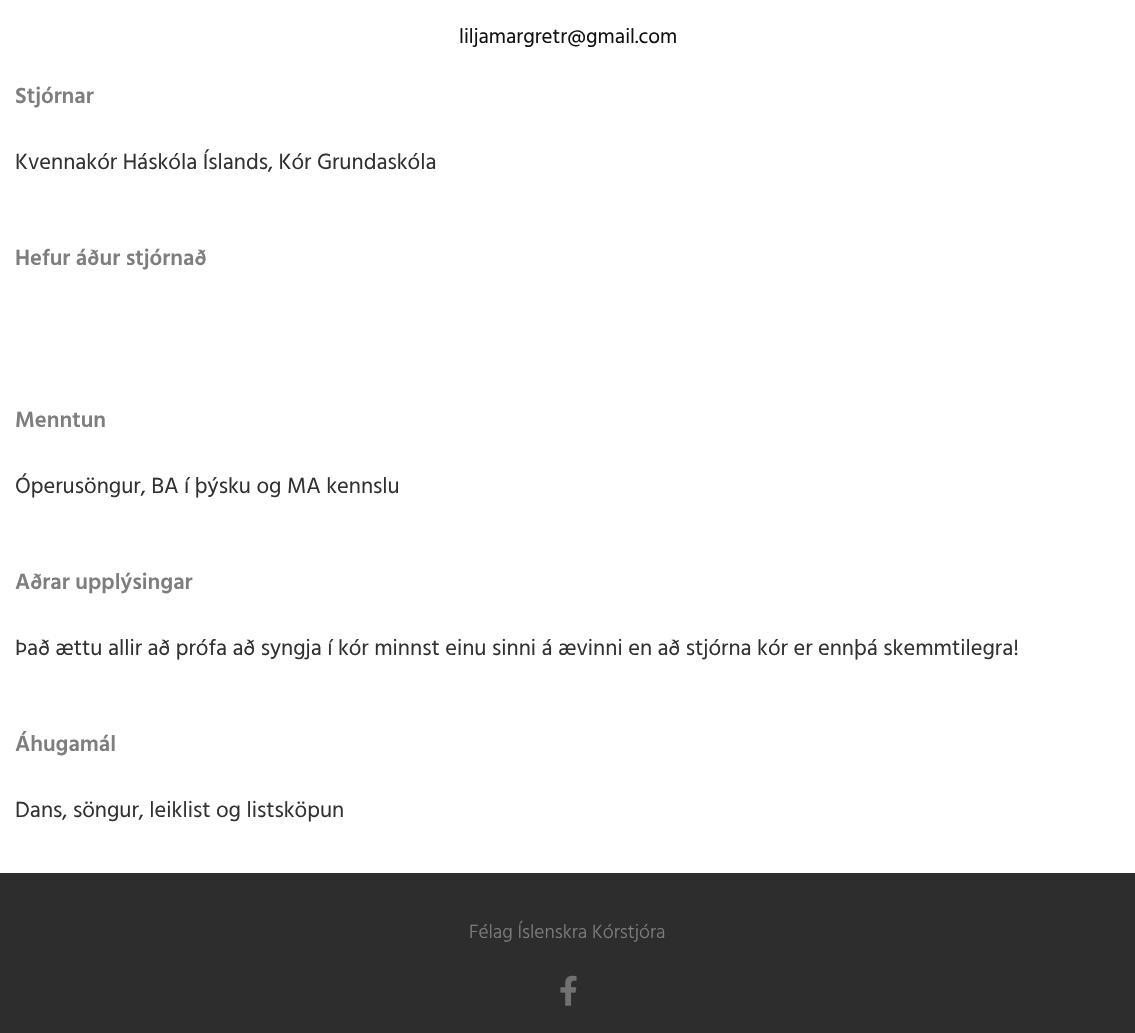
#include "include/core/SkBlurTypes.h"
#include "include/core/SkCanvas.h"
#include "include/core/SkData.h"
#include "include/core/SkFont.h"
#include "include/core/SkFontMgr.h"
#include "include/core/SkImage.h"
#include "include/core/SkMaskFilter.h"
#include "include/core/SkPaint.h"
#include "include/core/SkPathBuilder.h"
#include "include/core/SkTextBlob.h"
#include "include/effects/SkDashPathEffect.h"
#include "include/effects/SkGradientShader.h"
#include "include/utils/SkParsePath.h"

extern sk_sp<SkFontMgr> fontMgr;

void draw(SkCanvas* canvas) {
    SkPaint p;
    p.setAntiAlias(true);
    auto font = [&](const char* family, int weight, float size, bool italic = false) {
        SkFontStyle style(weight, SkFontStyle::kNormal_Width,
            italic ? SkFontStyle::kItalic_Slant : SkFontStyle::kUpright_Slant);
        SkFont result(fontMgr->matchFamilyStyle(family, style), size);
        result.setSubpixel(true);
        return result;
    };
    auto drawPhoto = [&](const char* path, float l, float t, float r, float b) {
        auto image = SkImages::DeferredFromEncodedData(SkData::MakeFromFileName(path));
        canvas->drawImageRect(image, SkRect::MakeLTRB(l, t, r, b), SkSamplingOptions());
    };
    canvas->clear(0xFFFFFFFF);
    auto font1 = font("Hind", 400, 21);
    p.setColor(0xFF111111);
    canvas->drawString("liljamargretr@gmail.com", 459, 43, font1, p);
    auto font2 = font("Hind", 600, 22.5f);
    p.setColor(0xFF7E7E7E);
    canvas->drawString("Stjórnar", 15, 103, font2, p);
    auto font3 = font("Hind", 400, 22.5f);
    p.setColor(0xFF313131);
    canvas->drawString("Kvennakór Háskóla Íslands, Kór Grundaskóla", 15, 169, font3, p);
    p.setColor(0xFF7E7E7E);
    canvas->drawString("Hefur áður stjórnað", 15, 265, font2, p);
    canvas->drawString("Menntun", 15, 427, font2, p);
    p.setColor(0xFF313131);
    canvas->drawString("Óperusöngur, BA í þýsku og MA kennslu", 15, 493, font3, p);
    p.setColor(0xFF7E7E7E);
    canvas->drawString("Aðrar upplýsingar", 15, 589, font2, p);
    p.setColor(0xFF313131);
    canvas->drawString("Það ættu allir að prófa að syngja í kór minnst einu sinni á ævinni en að stjórna kór er ennþá skemmtilegra!", 15, 655, font3, p);
    p.setColor(0xFF7E7E7E);
    canvas->drawString("Áhugamál", 15, 751, font2, p);
    p.setColor(0xFF313131);
    canvas->drawString("Dans, söngur, leiklist og listsköpun", 15, 817, font3, p);
    p.setColor(0xFF2D2D2D);
    canvas->drawRect(SkRect::MakeLTRB(0, 873, 1135, 1033), p);
    auto font4 = font("Hind", 300, 19.5f);
    p.setColor(0xFF7E7E7E);
    canvas->drawString("Félag Íslenskra Kórstjóra", 469, 938, font4, p);
    drawPhoto("media/1.png", 560, 975, 577, 1006);
}
